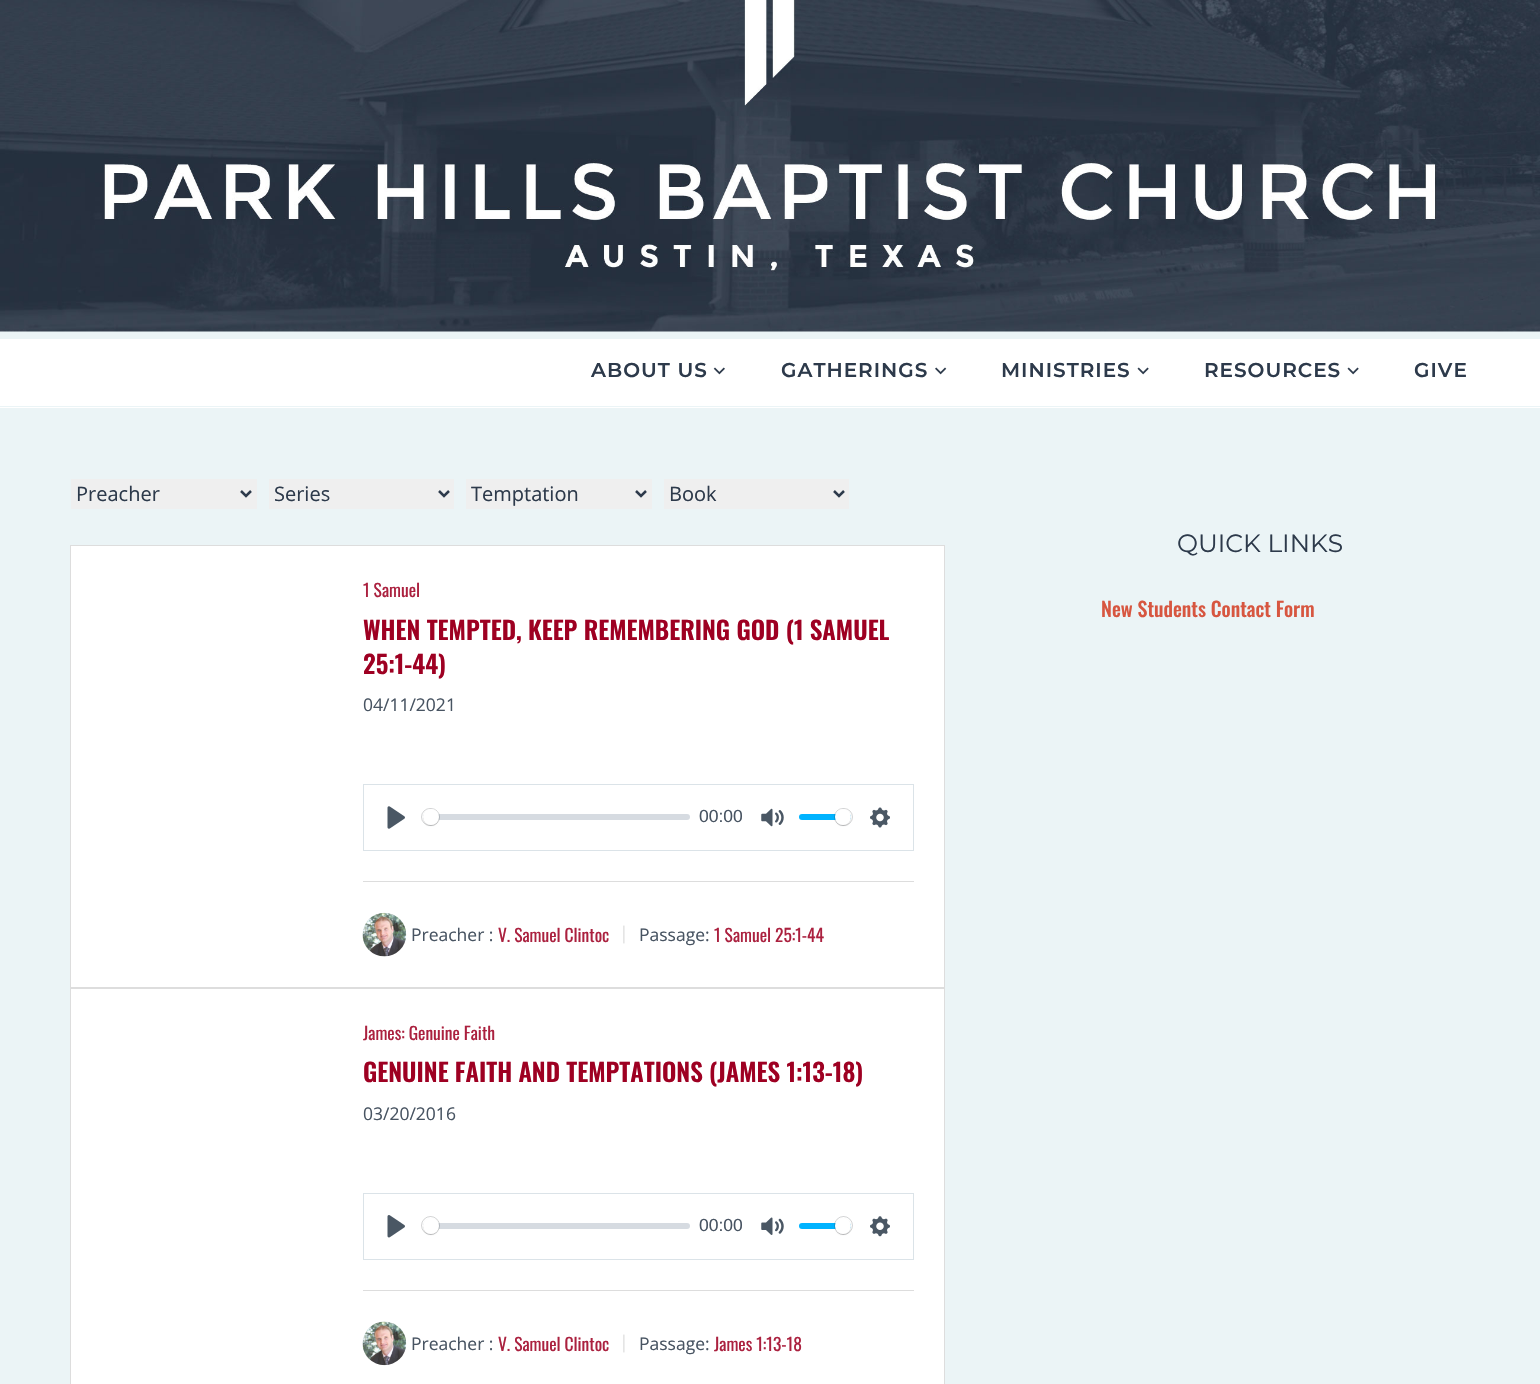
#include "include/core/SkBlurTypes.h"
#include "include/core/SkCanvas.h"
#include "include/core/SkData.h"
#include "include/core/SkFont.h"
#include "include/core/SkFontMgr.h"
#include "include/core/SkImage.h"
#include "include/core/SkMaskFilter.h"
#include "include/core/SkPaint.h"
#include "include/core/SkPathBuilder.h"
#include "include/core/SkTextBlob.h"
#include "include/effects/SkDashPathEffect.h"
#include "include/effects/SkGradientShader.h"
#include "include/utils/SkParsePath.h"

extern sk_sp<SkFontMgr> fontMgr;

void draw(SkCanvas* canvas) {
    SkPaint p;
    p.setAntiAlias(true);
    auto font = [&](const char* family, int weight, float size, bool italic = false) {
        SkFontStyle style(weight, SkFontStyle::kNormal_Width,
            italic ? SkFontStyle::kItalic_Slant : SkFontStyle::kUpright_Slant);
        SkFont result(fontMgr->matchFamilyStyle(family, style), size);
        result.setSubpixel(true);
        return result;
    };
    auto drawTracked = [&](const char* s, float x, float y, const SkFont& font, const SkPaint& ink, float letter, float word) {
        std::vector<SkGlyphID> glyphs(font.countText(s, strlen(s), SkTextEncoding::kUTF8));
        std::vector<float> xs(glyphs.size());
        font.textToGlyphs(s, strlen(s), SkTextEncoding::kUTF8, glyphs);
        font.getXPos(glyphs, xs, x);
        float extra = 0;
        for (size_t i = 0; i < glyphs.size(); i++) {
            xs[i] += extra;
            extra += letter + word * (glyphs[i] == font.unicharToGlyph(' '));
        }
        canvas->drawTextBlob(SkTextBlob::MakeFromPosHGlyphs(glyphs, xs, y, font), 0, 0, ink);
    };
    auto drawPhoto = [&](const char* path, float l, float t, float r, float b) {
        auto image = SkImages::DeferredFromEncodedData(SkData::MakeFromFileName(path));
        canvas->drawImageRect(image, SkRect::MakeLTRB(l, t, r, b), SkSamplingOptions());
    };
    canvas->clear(0xFFEBF4F6);
    drawPhoto("media/1.png", 0, 0, 1540, 332);
    p.setColor(0xFFFFFFFF);
    canvas->drawRect(SkRect::MakeLTRB(0, 339, 1540, 408), p);
    p.setColor(0xFFEBF4F6);
    canvas->drawRect(SkRect::MakeLTRB(0, 406, 1540, 407), p);
    auto font1 = font("Montserrat", 600, 20);
    p.setColor(0xFF2D3A4B);
    drawTracked("ABOUT US", 591, 377, font1, p, 1, 0);
    drawPhoto("media/2.png", 713, 367, 725, 375);
    drawTracked("GATHERINGS", 781, 377, font1, p, 1, 0);
    drawPhoto("media/3.png", 935, 367, 947, 375);
    drawTracked("MINISTRIES", 1001, 377, font1, p, 1, 0);
    drawPhoto("media/4.png", 1137, 367, 1149, 375);
    drawTracked("RESOURCES", 1204, 377, font1, p, 1, 0);
    drawPhoto("media/4.png", 1347, 367, 1359, 375);
    drawTracked("GIVE", 1414, 377, font1, p, 1, 0);
    p.setColor(0xFFEFEFEF);
    canvas->drawRect(SkRect::MakeLTRB(71, 479, 257, 509), p);
    p.setStyle(SkPaint::kStroke_Style);
    p.setStrokeWidth(2.5f);
    p.setColor(0xFF2D3A4B);
    canvas->drawPath(SkPathBuilder().moveTo(241, 491).lineTo(246, 496).lineTo(251, 491).detach(), p);
    auto font2 = font("Open Sans", 400, 20);
    p.setStyle(SkPaint::kFill_Style);
    canvas->drawString("Preacher", 76, 501, font2, p);
    p.setColor(0xFFEFEFEF);
    canvas->drawRect(SkRect::MakeLTRB(269, 479, 454, 509), p);
    p.setStyle(SkPaint::kStroke_Style);
    p.setColor(0xFF2D3A4B);
    canvas->drawPath(SkPathBuilder().moveTo(439, 491).lineTo(444, 496).lineTo(449, 491).detach(), p);
    p.setStyle(SkPaint::kFill_Style);
    canvas->drawString("Series", 274, 501, font2, p);
    p.setColor(0xFFEFEFEF);
    canvas->drawRect(SkRect::MakeLTRB(466, 479, 652, 509), p);
    p.setStyle(SkPaint::kStroke_Style);
    p.setColor(0xFF2D3A4B);
    canvas->drawPath(SkPathBuilder().moveTo(636, 491).lineTo(641, 496).lineTo(646, 491).detach(), p);
    p.setStyle(SkPaint::kFill_Style);
    canvas->drawString("Temptation", 471, 501, font2, p);
    p.setColor(0xFFEFEFEF);
    canvas->drawRect(SkRect::MakeLTRB(664, 479, 849, 509), p);
    p.setStyle(SkPaint::kStroke_Style);
    p.setColor(0xFF2D3A4B);
    canvas->drawPath(SkPathBuilder().moveTo(834, 491).lineTo(839, 496).lineTo(844, 491).detach(), p);
    p.setStyle(SkPaint::kFill_Style);
    canvas->drawString("Book", 669, 501, font2, p);
    p.setColor(0xFFFFFFFF);
    canvas->drawRect(SkRect::MakeLTRB(70.5f, 545.5f, 944.5f, 987.5f), p);
    p.setStyle(SkPaint::kStroke_Style);
    p.setStrokeWidth(1);
    p.setColor(0xFFDDDDDD);
    canvas->drawRect(SkRect::MakeLTRB(70.5f, 545.5f, 944.5f, 987.5f), p);
    auto font3 = font("Oswald", 400, 17.5f);
    p.setStyle(SkPaint::kFill_Style);
    p.setColor(0xFFAB213F);
    canvas->drawString("1 Samuel", 363, 597, font3, p);
    auto font4 = font("Oswald", 600, 25);
    p.setColor(0xFF9E0022);
    canvas->drawString("WHEN TEMPTED, KEEP REMEMBERING GOD (1 SAMUEL", 363, 640, font4, p);
    canvas->drawString("25:1-44)", 363, 674, font4, p);
    auto font5 = font("Open Sans", 400, 17.5f);
    p.setColor(0xFF485462);
    canvas->drawString("04/11/2021", 363, 711, font5, p);
    p.setStyle(SkPaint::kStroke_Style);
    p.setColor(0xFFDBE3E8);
    canvas->drawRect(SkRect::MakeLTRB(363.5f, 784.5f, 913.5f, 850.5f), p);
    drawPhoto("media/5.png", 387, 806, 405, 829);
    p.setStyle(SkPaint::kFill_Style);
    p.setColor(0xA8C1C9D1);
    canvas->drawRoundRect(SkRect::MakeLTRB(423, 814, 690, 820), 3, 3, p);
    p.setStyle(SkPaint::kStroke_Style);
    p.setColor(0x3323292F);
    canvas->drawRoundRect(SkRect::MakeLTRB(421.5f, 808.5f, 439.5f, 825.5f), 8.5f, 8.5f, p);
    p.setStyle(SkPaint::kFill_Style);
    p.setColor(0x26000000);
    p.setMaskFilter(SkMaskFilter::MakeBlur(kNormal_SkBlurStyle, 0.5f));
    canvas->drawRoundRect(SkRect::MakeLTRB(423, 810, 439, 826), 8, 8, p);
    p.setMaskFilter(nullptr);
    p.setColor(0xFFFFFFFF);
    canvas->drawCircle(431, 817, 8, p);
    auto font6 = font("Liberation Sans", 400, 17.5f);
    p.setColor(0xFF485462);
    canvas->drawString("00:00", 699, 822, font6, p);
    drawPhoto("media/6.png", 761, 808, 784, 827);
    p.setColor(0xFF00B3FF);
    canvas->drawRoundRect(SkRect::MakeLTRB(799, 814, 851, 820), 3, 3, p);
    p.setStyle(SkPaint::kStroke_Style);
    p.setColor(0x3323292F);
    canvas->drawRoundRect(SkRect::MakeLTRB(834.5f, 808.5f, 852.5f, 825.5f), 8.5f, 8.5f, p);
    p.setStyle(SkPaint::kFill_Style);
    p.setColor(0x26000000);
    p.setMaskFilter(SkMaskFilter::MakeBlur(kNormal_SkBlurStyle, 0.5f));
    canvas->drawRoundRect(SkRect::MakeLTRB(835, 810, 851, 826), 8, 8, p);
    p.setMaskFilter(nullptr);
    p.setColor(0xFFFFFFFF);
    canvas->drawCircle(843, 817, 8, p);
    drawPhoto("media/7.png", 870, 807, 890, 828);
    p.setColor(0xFFDDDDDD);
    canvas->drawRect(SkRect::MakeLTRB(363, 881, 914, 882), p);
    drawPhoto("media/8.png", 362, 912, 407, 957);
    p.setColor(0xFF485462);
    canvas->drawString("Preacher :", 411, 941, font5, p);
    p.setColor(0xFFAB213F);
    canvas->drawString("V. Samuel Clintoc", 498, 942, font3, p);
    p.setColor(0xFFE1E1E1);
    canvas->drawString("|", 619, 939, font5, p);
    p.setColor(0xFF485462);
    canvas->drawString("Passage:", 639, 941, font5, p);
    p.setColor(0xFFAB213F);
    canvas->drawString("1 Samuel 25:1-44", 714, 942, font3, p);
    p.setColor(0xFFFFFFFF);
    canvas->drawRect(SkRect::MakeLTRB(70.5f, 988.5f, 944.5f, 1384.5f), p);
    p.setStyle(SkPaint::kStroke_Style);
    p.setColor(0xFFDDDDDD);
    canvas->drawRect(SkRect::MakeLTRB(70.5f, 988.5f, 944.5f, 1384.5f), p);
    p.setStyle(SkPaint::kFill_Style);
    p.setColor(0xFFAB213F);
    canvas->drawString("James: Genuine Faith", 363, 1040, font3, p);
    p.setColor(0xFF9E0022);
    canvas->drawString("GENUINE FAITH AND TEMPTATIONS (JAMES 1:13-18)", 363, 1082, font4, p);
    p.setColor(0xFF485462);
    canvas->drawString("03/20/2016", 363, 1120, font5, p);
    p.setStyle(SkPaint::kStroke_Style);
    p.setColor(0xFFDBE3E8);
    canvas->drawRect(SkRect::MakeLTRB(363.5f, 1193.5f, 913.5f, 1259.5f), p);
    drawPhoto("media/9.png", 387, 1215, 405, 1238);
    p.setStyle(SkPaint::kFill_Style);
    p.setColor(0xA8C1C9D1);
    canvas->drawRoundRect(SkRect::MakeLTRB(423, 1223, 690, 1229), 3, 3, p);
    p.setStyle(SkPaint::kStroke_Style);
    p.setColor(0x3323292F);
    canvas->drawCircle(430.5f, 1225.5f, 9, p);
    p.setStyle(SkPaint::kFill_Style);
    p.setColor(0x26000000);
    p.setMaskFilter(SkMaskFilter::MakeBlur(kNormal_SkBlurStyle, 0.5f));
    canvas->drawRoundRect(SkRect::MakeLTRB(423, 1219, 439, 1235), 8, 8, p);
    p.setMaskFilter(nullptr);
    p.setColor(0xFFFFFFFF);
    canvas->drawCircle(431, 1226, 8, p);
    p.setColor(0xFF485462);
    canvas->drawString("00:00", 699, 1231, font6, p);
    drawPhoto("media/10.png", 761, 1217, 784, 1235);
    p.setColor(0xFF00B3FF);
    canvas->drawRoundRect(SkRect::MakeLTRB(799, 1223, 851, 1229), 3, 3, p);
    p.setStyle(SkPaint::kStroke_Style);
    p.setColor(0x3323292F);
    canvas->drawCircle(843.5f, 1225.5f, 9, p);
    p.setStyle(SkPaint::kFill_Style);
    p.setColor(0x26000000);
    p.setMaskFilter(SkMaskFilter::MakeBlur(kNormal_SkBlurStyle, 0.5f));
    canvas->drawRoundRect(SkRect::MakeLTRB(835, 1219, 851, 1235), 8, 8, p);
    p.setMaskFilter(nullptr);
    p.setColor(0xFFFFFFFF);
    canvas->drawCircle(843, 1226, 8, p);
    drawPhoto("media/11.png", 870, 1216, 890, 1237);
    p.setColor(0xFFDDDDDD);
    canvas->drawRect(SkRect::MakeLTRB(363, 1290, 914, 1291), p);
    drawPhoto("media/12.png", 362, 1321, 407, 1366);
    p.setColor(0xFF485462);
    canvas->drawString("Preacher :", 411, 1350, font5, p);
    p.setColor(0xFFAB213F);
    canvas->drawString("V. Samuel Clintoc", 498, 1351, font3, p);
    p.setColor(0xFFE1E1E1);
    canvas->drawString("|", 619, 1348, font5, p);
    p.setColor(0xFF485462);
    canvas->drawString("Passage:", 639, 1350, font5, p);
    p.setColor(0xFFAB213F);
    canvas->drawString("James 1:13-18", 714, 1351, font3, p);
    auto font7 = font("Montserrat", 400, 25);
    p.setColor(0xFF2D3A4B);
    canvas->drawString("QUICK LINKS", 1177, 552, font7, p);
    auto font8 = font("Oswald", 500, 20);
    p.setColor(0xFFD75640);
    canvas->drawString("New Students Contact Form", 1101, 617, font8, p);
}
